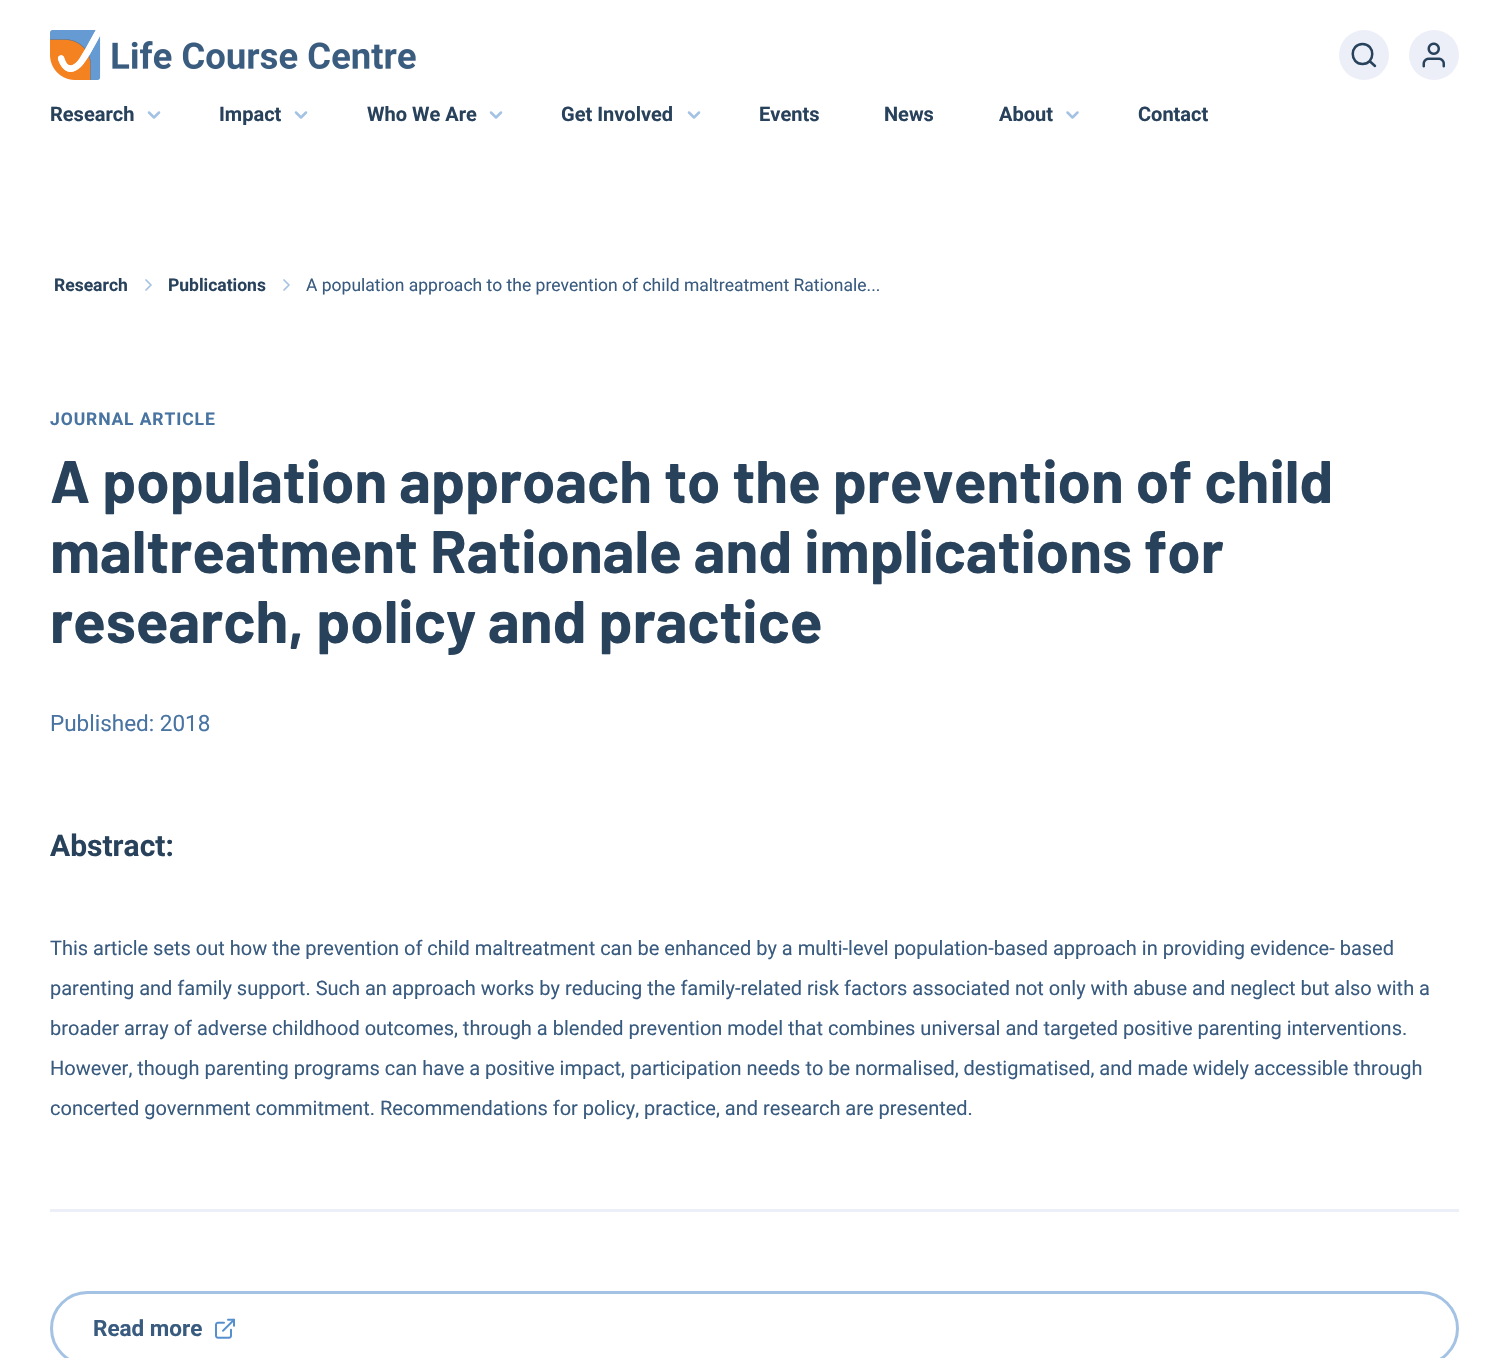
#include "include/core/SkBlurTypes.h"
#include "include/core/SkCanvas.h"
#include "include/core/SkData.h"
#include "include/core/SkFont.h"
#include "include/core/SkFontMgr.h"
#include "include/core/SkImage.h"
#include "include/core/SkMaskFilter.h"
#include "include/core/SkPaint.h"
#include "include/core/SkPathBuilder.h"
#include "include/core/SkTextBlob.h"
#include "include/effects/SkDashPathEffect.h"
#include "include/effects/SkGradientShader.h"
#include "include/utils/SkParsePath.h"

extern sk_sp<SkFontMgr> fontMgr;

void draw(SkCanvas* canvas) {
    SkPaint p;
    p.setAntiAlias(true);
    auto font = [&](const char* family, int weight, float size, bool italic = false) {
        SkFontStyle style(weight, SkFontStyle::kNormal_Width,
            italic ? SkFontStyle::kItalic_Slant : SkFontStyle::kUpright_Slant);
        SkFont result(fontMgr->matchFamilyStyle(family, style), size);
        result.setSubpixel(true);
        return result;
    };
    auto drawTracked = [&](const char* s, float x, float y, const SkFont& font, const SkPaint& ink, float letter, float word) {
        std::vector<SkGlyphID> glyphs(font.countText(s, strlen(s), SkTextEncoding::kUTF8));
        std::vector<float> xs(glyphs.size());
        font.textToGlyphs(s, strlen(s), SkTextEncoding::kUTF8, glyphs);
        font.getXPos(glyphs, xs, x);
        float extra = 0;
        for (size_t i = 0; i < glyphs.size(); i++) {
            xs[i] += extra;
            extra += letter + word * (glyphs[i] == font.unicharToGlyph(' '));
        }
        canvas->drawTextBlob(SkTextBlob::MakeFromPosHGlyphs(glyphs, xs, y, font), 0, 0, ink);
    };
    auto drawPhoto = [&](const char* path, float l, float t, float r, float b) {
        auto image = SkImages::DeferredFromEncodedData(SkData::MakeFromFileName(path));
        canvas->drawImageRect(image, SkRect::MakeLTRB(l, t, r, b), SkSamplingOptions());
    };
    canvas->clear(0xFFFFFFFF);
    drawPhoto("media/1.png", 50, 30, 416, 80);
    p.setColor(0xFFECEFF8);
    canvas->drawCircle(1364, 55, 25, p);
    p.setStyle(SkPaint::kStroke_Style);
    p.setStrokeWidth(2.5f);
    p.setStrokeCap(SkPaint::kRound_Cap);
    p.setStrokeJoin(SkPaint::kRound_Join);
    p.setColor(0xFF29425C);
    canvas->drawPath(SkPathBuilder().moveTo(1362.5f, 64).cubicTo(1375.5f, 64, 1375.5f, 44, 1362.5f, 44).cubicTo(1349.5f, 44, 1349.5f, 64, 1362.5f, 64).close().moveTo(1375, 66).lineTo(1369.5f, 61).detach(), p);
    p.setStyle(SkPaint::kFill_Style);
    p.setColor(0xFFECEFF8);
    canvas->drawCircle(1434, 55, 25, p);
    drawPhoto("media/2.png", 1422, 42, 1445, 68);
    auto font1 = font("Roboto", 700, 20);
    p.setColor(0xFF29425C);
    canvas->drawString("Research", 50, 121, font1, p);
    p.setStyle(SkPaint::kStroke_Style);
    p.setColor(0xFFA3C2E4);
    canvas->drawPath(SkPathBuilder().moveTo(149, 112.5f).lineTo(154, 117.5f).lineTo(159, 112.5f).detach(), p);
    p.setStyle(SkPaint::kFill_Style);
    p.setColor(0xFF29425C);
    canvas->drawString("Impact", 219, 121, font1, p);
    p.setStyle(SkPaint::kStroke_Style);
    p.setColor(0xFFA3C2E4);
    canvas->drawPath(SkPathBuilder().moveTo(296, 112.5f).lineTo(301, 117.5f).lineTo(306, 112.5f).detach(), p);
    p.setStyle(SkPaint::kFill_Style);
    p.setColor(0xFF29425C);
    canvas->drawString("Who We Are", 367, 121, font1, p);
    p.setStyle(SkPaint::kStroke_Style);
    p.setColor(0xFFA3C2E4);
    canvas->drawPath(SkPathBuilder().moveTo(491, 112.5f).lineTo(496, 117.5f).lineTo(501, 112.5f).detach(), p);
    p.setStyle(SkPaint::kFill_Style);
    p.setColor(0xFF29425C);
    canvas->drawString("Get Involved", 561, 121, font1, p);
    p.setStyle(SkPaint::kStroke_Style);
    p.setColor(0xFFA3C2E4);
    canvas->drawPath(SkPathBuilder().moveTo(689, 112.5f).lineTo(694, 117.5f).lineTo(699, 112.5f).detach(), p);
    p.setStyle(SkPaint::kFill_Style);
    p.setColor(0xFF29425C);
    {
        const struct { const char* s; float x, y; } items[] = {
            {"Events", 759, 121},
            {"News", 884, 121},
            {"About", 999, 121},
        };
        for (auto [s, x, y] : items) {
            canvas->drawString(s, x, y, font1, p);
        }
    }
    p.setStyle(SkPaint::kStroke_Style);
    p.setColor(0xFFA3C2E4);
    canvas->drawPath(SkPathBuilder().moveTo(1067.5f, 112.5f).lineTo(1072.5f, 117.5f).lineTo(1077.5f, 112.5f).detach(), p);
    p.setStyle(SkPaint::kFill_Style);
    p.setColor(0xFF29425C);
    canvas->drawString("Contact", 1138, 121, font1, p);
    auto font2 = font("Roboto", 700, 17.5f);
    canvas->drawString("Research", 54, 291, font2, p);
    p.setStyle(SkPaint::kStroke_Style);
    p.setStrokeWidth(1.7f);
    p.setColor(0xFFA3C2E4);
    canvas->drawPath(SkPathBuilder().moveTo(146, 290).lineTo(151, 285).lineTo(146, 280).detach(), p);
    p.setStyle(SkPaint::kFill_Style);
    p.setColor(0xFF29425C);
    canvas->drawString("Publications", 168, 291, font2, p);
    p.setStyle(SkPaint::kStroke_Style);
    p.setColor(0xFFA3C2E4);
    canvas->drawPath(SkPathBuilder().moveTo(284, 290).lineTo(289, 285).lineTo(284, 280).detach(), p);
    auto font3 = font("Roboto", 400, 17.5f);
    p.setStyle(SkPaint::kFill_Style);
    p.setColor(0xFF395B7F);
    canvas->drawString("A population approach to the prevention of child maltreatment Rationale...", 306, 291, font3, p);
    p.setColor(0xFF4974A2);
    drawTracked("JOURNAL ARTICLE", 50, 425, font2, p, 0.9f, 0);
    auto font4 = font("Barlow", 700, 60);
    p.setColor(0xFF29425C);
    {
        const struct { const char* s; float x, y; } items[] = {
            {"A population approach to the prevention of child", 50, 503},
            {"maltreatment Rationale and implications for", 50, 573},
            {"research, policy and practice", 50, 643},
        };
        for (auto [s, x, y] : items) {
            canvas->drawString(s, x, y, font4, p);
        }
    }
    auto font5 = font("Roboto", 400, 22.5f);
    p.setColor(0xFF4974A2);
    canvas->drawString("Published: 2018", 50, 731, font5, p);
    auto font6 = font("Roboto", 700, 30);
    p.setColor(0xFF29425C);
    canvas->drawString("Abstract:", 50, 856, font6, p);
    auto font7 = font("Roboto", 400, 20);
    p.setColor(0xFF395B7F);
    {
        const struct { const char* s; float x, y; } items[] = {
            {"This article sets out how the prevention of child maltreatment can be enhanced by a multi-level population-based approach in providing evidence- based", 50, 955},
            {"parenting and family support. Such an approach works by reducing the family-related risk factors associated not only with abuse and neglect but also with a", 50, 995},
            {"broader array of adverse childhood outcomes, through a blended prevention model that combines universal and targeted positive parenting interventions.", 50, 1035},
            {"However, though parenting programs can have a positive impact, participation needs to be normalised, destigmatised, and made widely accessible through", 50, 1075},
            {"concerted government commitment. Recommendations for policy, practice, and research are presented.", 50, 1115},
        };
        for (auto [s, x, y] : items) {
            canvas->drawString(s, x, y, font7, p);
        }
    }
    p.setColor(0xFFECEFF8);
    canvas->drawRect(SkRect::MakeLTRB(50, 1209, 1459, 1212), p);
    p.setStyle(SkPaint::kStroke_Style);
    p.setStrokeWidth(3);
    p.setStrokeCap(SkPaint::kButt_Cap);
    p.setStrokeJoin(SkPaint::kMiter_Join);
    p.setColor(0xFFA3C2E4);
    canvas->drawRoundRect(SkRect::MakeLTRB(51.5f, 1292.5f, 1457.5f, 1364.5f), 36, 36, p);
    auto font8 = font("Roboto", 700, 22.5f);
    p.setStyle(SkPaint::kFill_Style);
    p.setColor(0xFF395B7F);
    canvas->drawString("Read more", 93, 1336, font8, p);
    drawPhoto("media/3.png", 215, 1318, 235, 1339);
}
